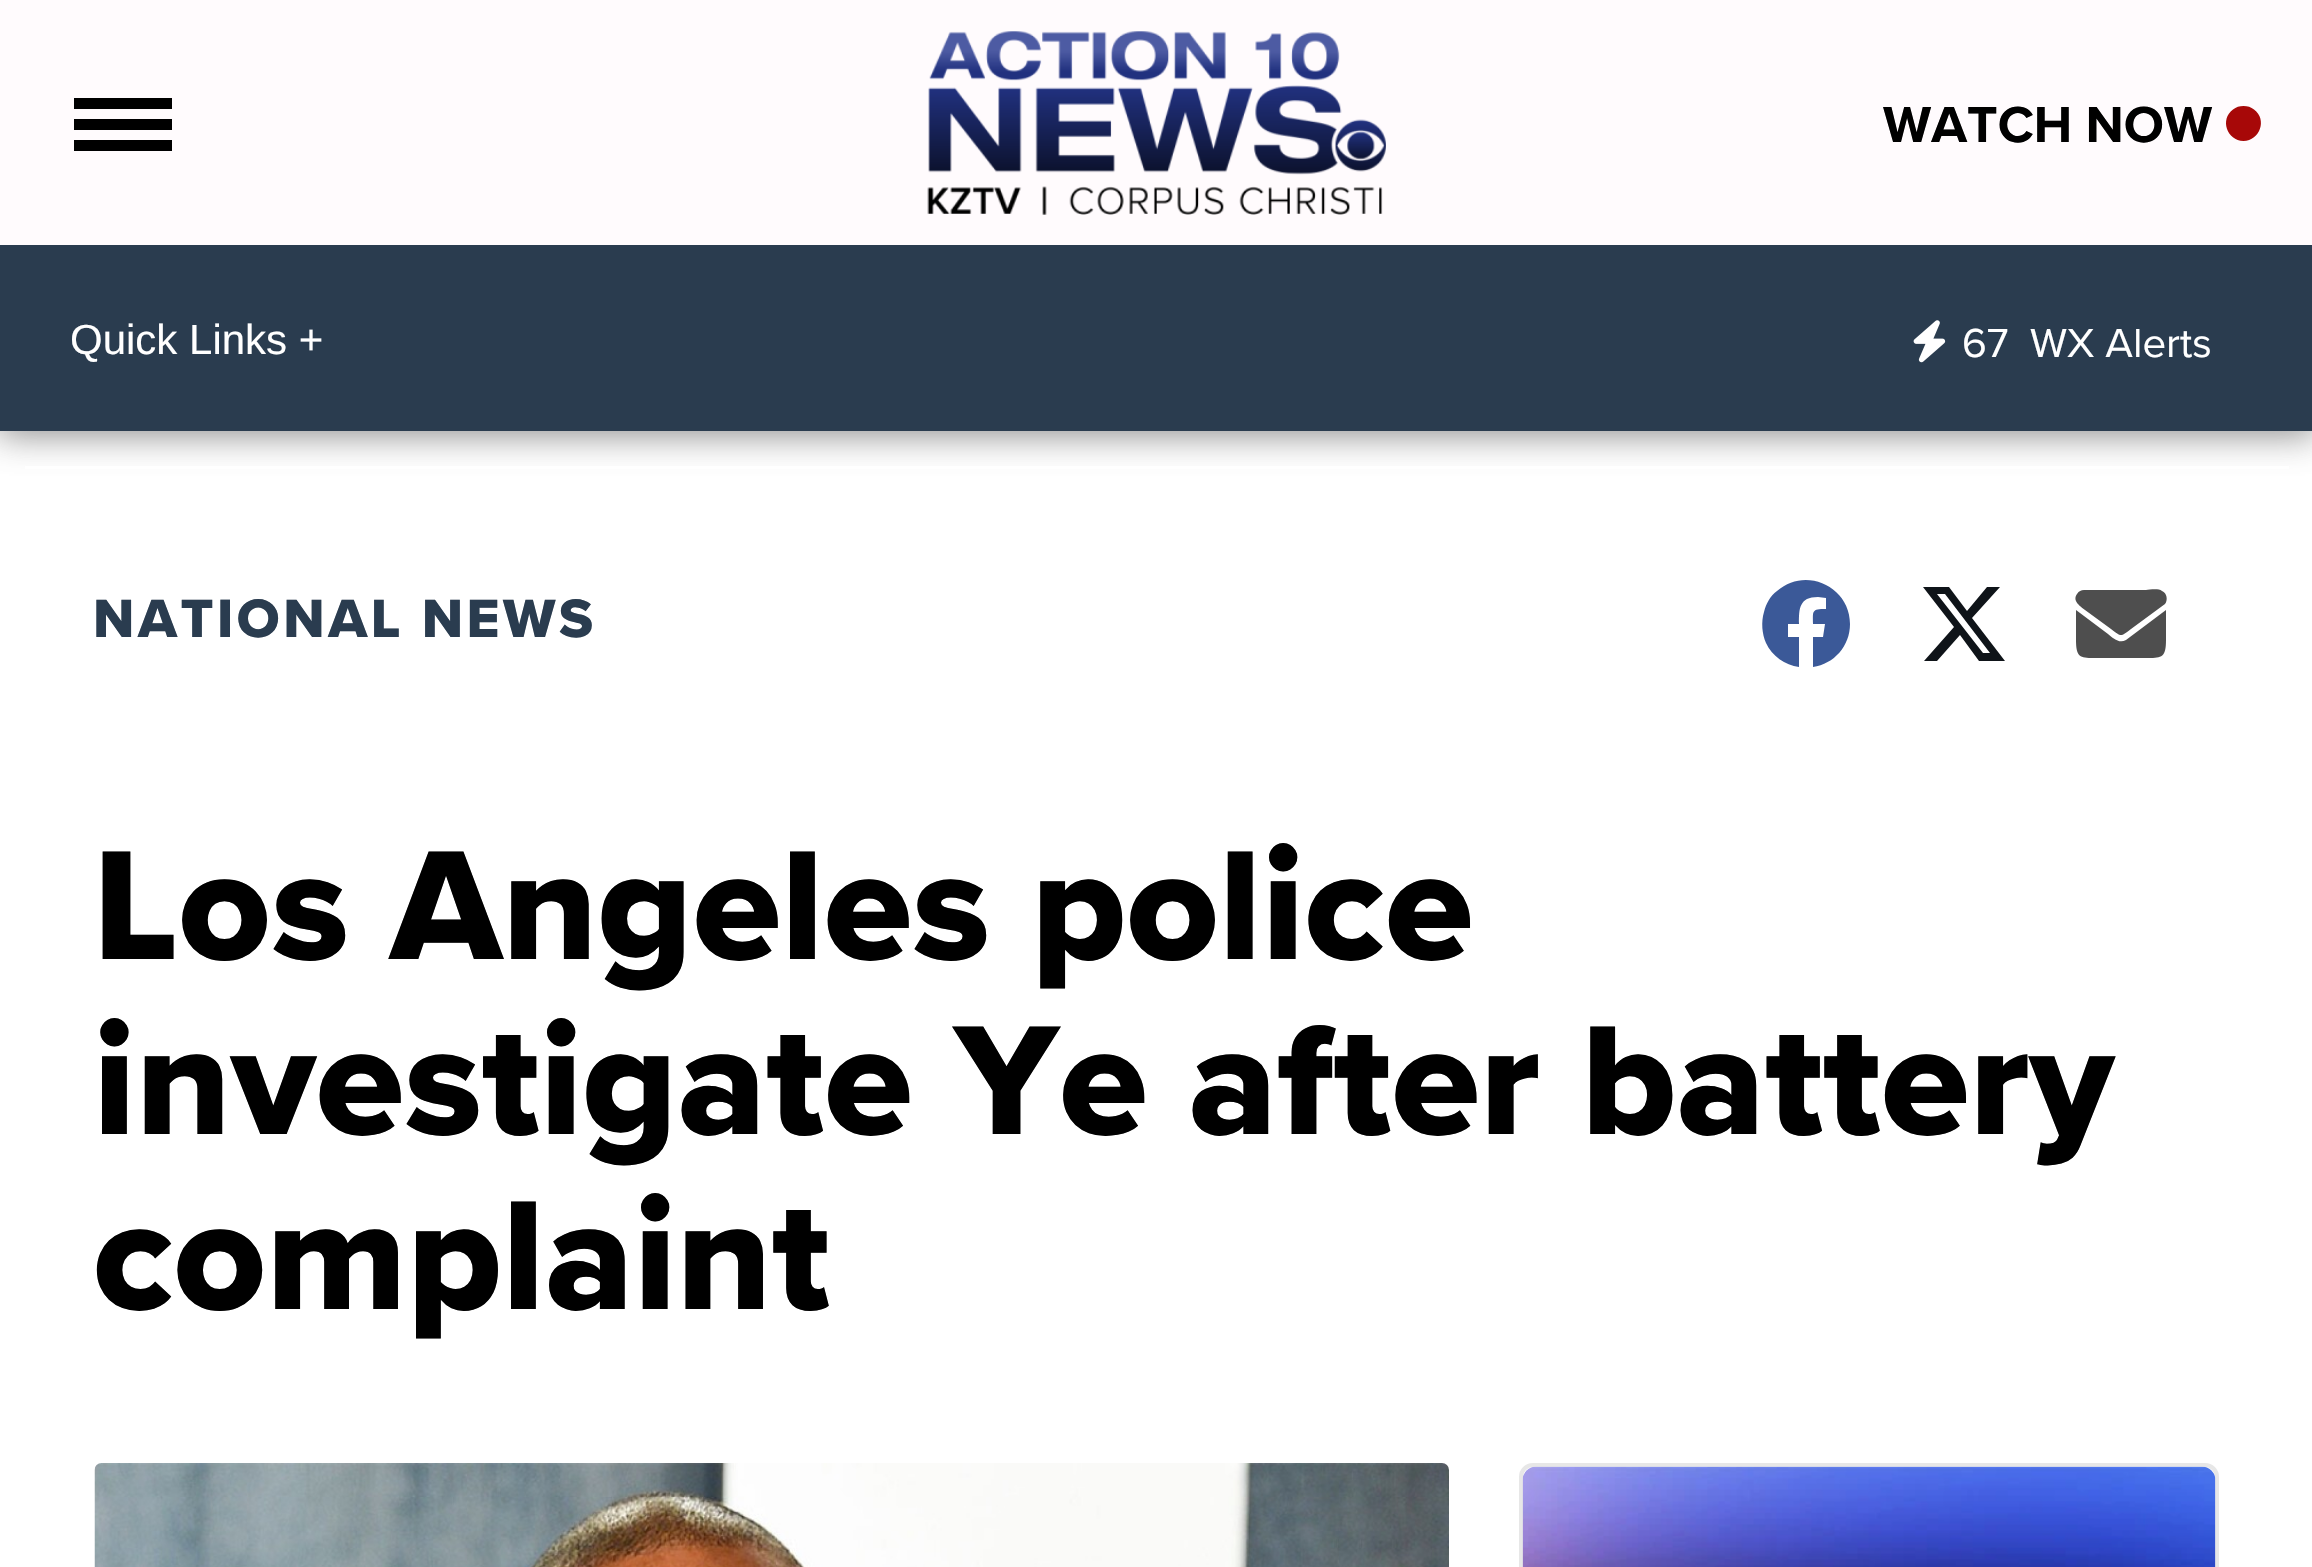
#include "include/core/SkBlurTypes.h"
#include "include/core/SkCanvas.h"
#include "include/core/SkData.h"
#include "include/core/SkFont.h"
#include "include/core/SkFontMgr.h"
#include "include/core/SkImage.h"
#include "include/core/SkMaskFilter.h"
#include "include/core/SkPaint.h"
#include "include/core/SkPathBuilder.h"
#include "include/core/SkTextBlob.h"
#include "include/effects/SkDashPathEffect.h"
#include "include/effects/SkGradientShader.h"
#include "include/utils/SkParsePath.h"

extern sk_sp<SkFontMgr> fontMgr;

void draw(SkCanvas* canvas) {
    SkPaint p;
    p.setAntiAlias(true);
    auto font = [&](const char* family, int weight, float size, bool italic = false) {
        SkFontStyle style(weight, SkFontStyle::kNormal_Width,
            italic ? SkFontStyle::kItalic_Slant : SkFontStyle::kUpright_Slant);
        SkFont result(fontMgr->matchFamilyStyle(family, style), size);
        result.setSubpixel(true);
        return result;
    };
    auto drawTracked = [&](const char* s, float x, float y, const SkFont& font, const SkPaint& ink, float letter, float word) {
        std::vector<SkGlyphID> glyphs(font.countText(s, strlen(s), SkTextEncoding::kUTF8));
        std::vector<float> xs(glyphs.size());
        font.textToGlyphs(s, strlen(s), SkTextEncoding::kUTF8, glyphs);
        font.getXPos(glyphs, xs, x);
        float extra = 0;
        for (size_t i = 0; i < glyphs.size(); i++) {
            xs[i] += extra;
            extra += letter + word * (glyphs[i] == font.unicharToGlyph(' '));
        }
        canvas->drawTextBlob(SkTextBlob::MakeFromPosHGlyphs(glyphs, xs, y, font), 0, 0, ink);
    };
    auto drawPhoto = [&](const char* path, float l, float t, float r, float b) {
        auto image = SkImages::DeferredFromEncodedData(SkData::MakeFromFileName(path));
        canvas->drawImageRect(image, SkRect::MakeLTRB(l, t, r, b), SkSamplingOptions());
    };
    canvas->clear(0xFFFFFFFF);
    p.setColor(0xC2616161);
    p.setMaskFilter(SkMaskFilter::MakeBlur(kNormal_SkBlurStyle, 17.5f));
    canvas->drawRect(SkRect::MakeLTRB(-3, -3, 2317, 434), p);
    p.setMaskFilter(nullptr);
    {
        const struct { float l, t, r, b; SkColor color; } items[] = {
            {0, 0, 2312, 245, 0xFFFFFBFD},
            {74, 98, 172, 109, 0xFF000000},
            {74, 119, 172, 130, 0xFF000000},
            {74, 140, 172, 151, 0xFF000000},
        };
        for (auto [l, t, r, b, color] : items) {
            p.setColor(color);
            canvas->drawRect(SkRect::MakeLTRB(l, t, r, b), p);
        }
    }
    drawPhoto("media/1.png", 927, 31, 1386, 215);
    auto font1 = font("Proxima Nova", 700, 52.5f);
    canvas->drawString("WATCH NOW", 1883, 142, font1, p);
    p.setColor(0xFFA70808);
    canvas->drawPath(SkPathBuilder().moveTo(2243.5f, 141).cubicTo(2260, 140.5f, 2267.5f, 119.5f, 2254, 109.5f).cubicTo(2251, 107, 2247.5f, 106, 2243.5f, 106).cubicTo(2239.5f, 106, 2236, 107, 2233, 109.5f).cubicTo(2219.5f, 119.5f, 2227, 140.5f, 2243.5f, 141).close().detach(), p);
    p.setColor(0xFF2A3C4F);
    canvas->drawRect(SkRect::MakeLTRB(0, 245, 2312, 431), p);
    auto font2 = font("Liberation Sans", 400, 42);
    p.setColor(0xFFFFFFFF);
    canvas->drawString("Quick Links +", 70, 354, font2, p);
    drawPhoto("media/2.png", 1913, 320, 1946, 363);
    auto font3 = font("Proxima Nova", 400, 42);
    canvas->drawString("67", 1962, 357, font3, p);
    canvas->drawString("WX Alerts", 2030, 357, font3, p);
    canvas->drawRect(SkRect::MakeLTRB(25, 466, 2289, 469), p);
    auto font4 = font("Proxima Nova", 800, 56);
    p.setColor(0xFF2A3C4F);
    drawTracked("NATIONAL NEWS", 93, 637, font4, p, 3.5f, 0);
    p.setColor(0xFF3B5998);
    canvas->drawPath(SkPathBuilder().moveTo(1850, 624).cubicTo(1850, 586, 1805, 566, 1777, 591).cubicTo(1770, 596, 1766, 604, 1764, 612).cubicTo(1761, 622, 1762, 634, 1766, 643).cubicTo(1772, 656, 1785, 665, 1799, 667).lineTo(1799, 637).lineTo(1788, 637).lineTo(1788, 624).lineTo(1799, 624).cubicTo(1799, 609, 1799, 597, 1818, 597).lineTo(1826, 598).lineTo(1826, 609).cubicTo(1811, 609, 1813, 611, 1813, 624).lineTo(1825, 624).lineTo(1823, 637).lineTo(1813, 637).lineTo(1813, 667).cubicTo(1834, 664, 1850, 646, 1850, 624).close().detach(), p);
    p.setColor(0xFF0F1419);
    canvas->drawPath(SkPathBuilder().moveTo(1987, 587).lineTo(2000, 587).lineTo(1972, 618).lineTo(2005, 661).lineTo(1979, 661).lineTo(1960, 635).lineTo(1937, 661).lineTo(1924, 661).lineTo(1954, 627).lineTo(1923, 587).lineTo(1949, 587).lineTo(1967, 611).close().moveTo(1983, 653).lineTo(1990, 653).lineTo(1945, 594).lineTo(1937, 594).close().detach(), p);
    p.setColor(0xFF4E4E4E);
    canvas->drawPath(SkPathBuilder().moveTo(2084, 590).cubicTo(2081, 590, 2079, 591, 2077, 594).cubicTo(2072, 601, 2080, 606, 2085, 610).lineTo(2111, 629).cubicTo(2122, 637, 2120, 637, 2131, 629).lineTo(2165, 604).cubicTo(2168, 600, 2167, 593, 2162, 591).cubicTo(2158, 588, 2149, 590, 2146, 590).close().moveTo(2076, 610).lineTo(2076, 640).cubicTo(2076, 659, 2081, 658, 2098, 658).lineTo(2144, 658).cubicTo(2161, 658, 2166, 659, 2166, 640).lineTo(2166, 610).lineTo(2126, 640).cubicTo(2119, 644, 2113, 638, 2108, 634).close().detach(), p);
    auto font5 = font("Proxima Nova", 800, 161);
    p.setColor(0xFF000000);
    {
        const struct { const char* s; float x, y; } items[] = {
            {"Los Angeles police", 93, 959},
            {"investigate Ye after battery", 93, 1134},
            {"complaint", 93, 1309},
        };
        for (auto [s, x, y] : items) {
            canvas->drawString(s, x, y, font5, p);
        }
    }
    drawPhoto("media/3.png", 94, 1463, 1449, 1567);
    p.setStyle(SkPaint::kStroke_Style);
    p.setStrokeWidth(4);
    p.setColor(0xFFE7E7E7);
    canvas->drawRoundRect(SkRect::MakeLTRB(1521, 1465, 2217, 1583), 12, 12, p);
    drawPhoto("media/4.png", 1522, 1466, 2216, 1567);
}
